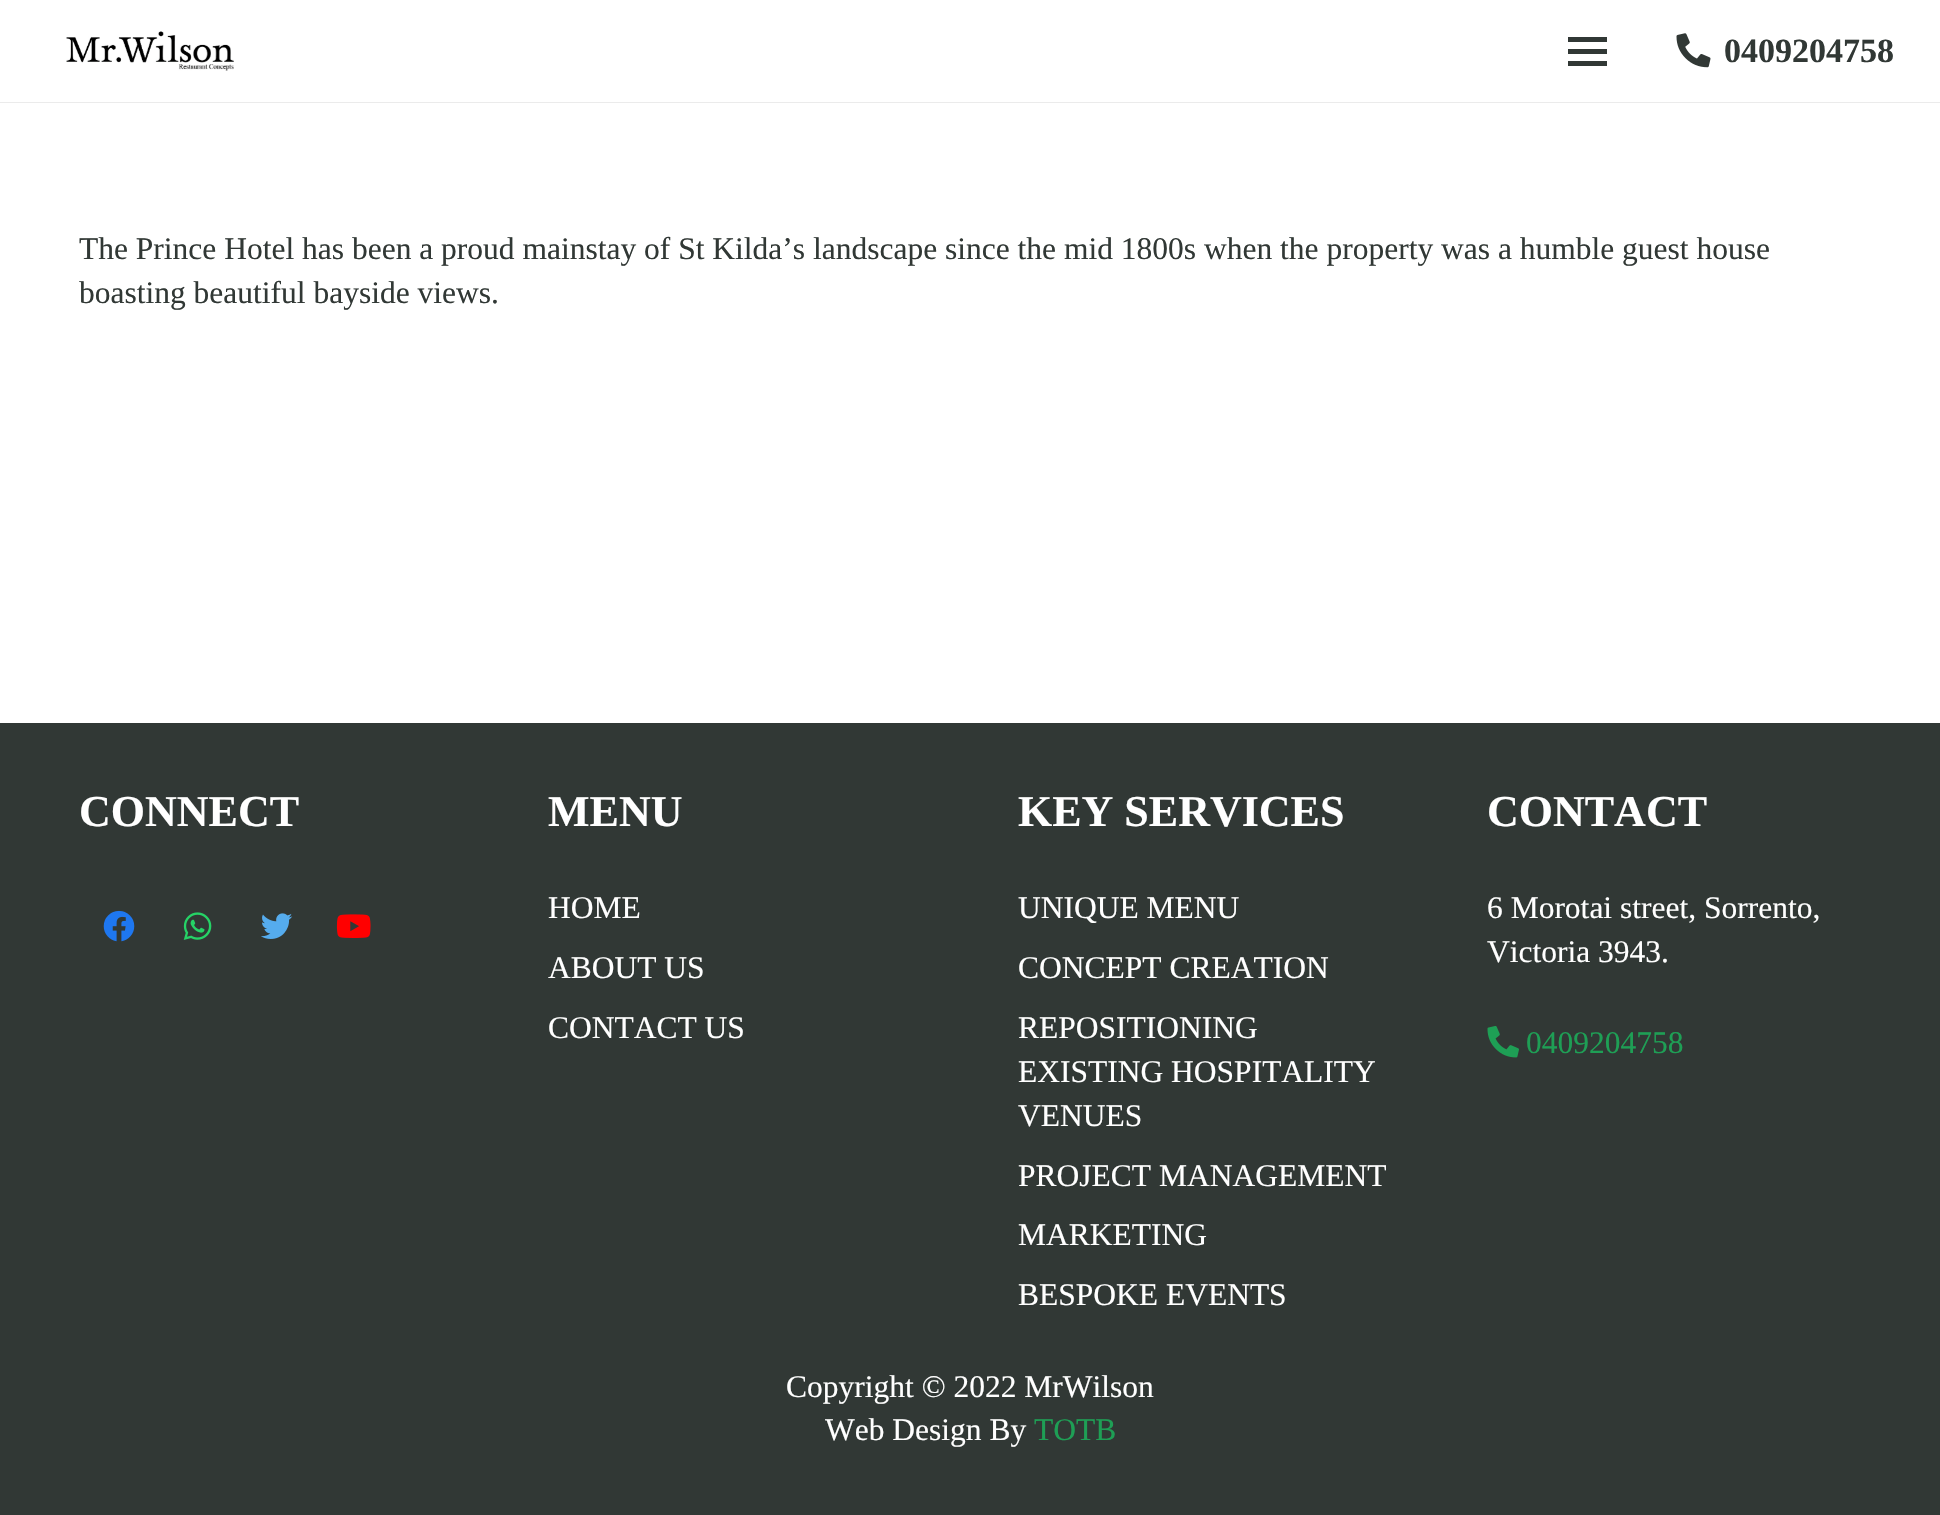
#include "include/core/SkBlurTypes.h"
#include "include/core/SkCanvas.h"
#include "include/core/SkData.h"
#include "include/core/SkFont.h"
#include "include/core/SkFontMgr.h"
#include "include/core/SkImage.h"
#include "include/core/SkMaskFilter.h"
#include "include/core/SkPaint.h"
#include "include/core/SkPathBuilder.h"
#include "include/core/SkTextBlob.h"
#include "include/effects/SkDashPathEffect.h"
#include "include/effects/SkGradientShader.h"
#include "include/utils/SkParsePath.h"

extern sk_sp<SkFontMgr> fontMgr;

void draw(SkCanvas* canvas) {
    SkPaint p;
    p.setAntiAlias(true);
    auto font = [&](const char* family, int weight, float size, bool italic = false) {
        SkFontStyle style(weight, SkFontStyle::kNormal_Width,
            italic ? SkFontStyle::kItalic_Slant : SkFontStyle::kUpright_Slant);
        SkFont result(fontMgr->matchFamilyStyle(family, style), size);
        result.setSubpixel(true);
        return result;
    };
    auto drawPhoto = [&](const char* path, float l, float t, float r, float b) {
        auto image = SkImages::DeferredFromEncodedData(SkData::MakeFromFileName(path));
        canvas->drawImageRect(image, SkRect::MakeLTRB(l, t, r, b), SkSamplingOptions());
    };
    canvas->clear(0xFFFFFFFF);
    p.setColor(0xFFEBEBEB);
    canvas->drawPath(SkPathBuilder().moveTo(0, 102).lineTo(0, 103).lineTo(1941, 103).lineTo(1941, 2).lineTo(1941, 102).close().detach(), p);
    drawPhoto("media/1.png", 66, 31, 234, 71);
    {
        const struct { float l, t, r, b; SkColor color; } items[] = {
            {1568, 49, 1607, 54, 0xFF313835},
            {1568, 37, 1607, 42, 0xFF313835},
            {1568, 61, 1607, 66, 0xFF313835},
        };
        for (auto [l, t, r, b, color] : items) {
            p.setColor(color);
            canvas->drawRect(SkRect::MakeLTRB(l, t, r, b), p);
        }
    }
    drawPhoto("media/2.png", 1676, 33, 1711, 68);
    auto font1 = font("Liberation Serif", 700, 34);
    canvas->drawString("0409204758", 1724, 62, font1, p);
    auto font2 = font("Liberation Serif", 400, 31.5f);
    canvas->drawString("The Prince Hotel has been a proud mainstay of St Kilda’s landscape since the mid 1800s when the property was a humble guest house", 79, 259, font2, p);
    canvas->drawString("boasting beautiful bayside views.", 79, 303, font2, p);
    canvas->drawRect(SkRect::MakeLTRB(0, 723, 1940, 1515), p);
    auto font3 = font("Liberation Serif", 700, 44);
    p.setColor(0xFFFFFFFF);
    canvas->drawString("CONNECT", 79, 826, font3, p);
    drawPhoto("media/3.png", 103, 910, 135, 942);
    drawPhoto("media/4.png", 183, 912, 212, 940);
    drawPhoto("media/5.png", 261, 913, 293, 939);
    drawPhoto("media/6.png", 336, 914, 371, 938);
    canvas->drawString("MENU", 548, 826, font3, p);
    {
        const struct { const char* s; float x, y; } items[] = {
            {"HOME", 548, 918},
            {"ABOUT US", 548, 978},
            {"CONTACT US", 548, 1038},
        };
        for (auto [s, x, y] : items) {
            canvas->drawString(s, x, y, font2, p);
        }
    }
    canvas->drawString("KEY SERVICES", 1018, 826, font3, p);
    {
        const struct { const char* s; float x, y; } items[] = {
            {"UNIQUE MENU", 1018, 918},
            {"CONCEPT CREATION", 1018, 978},
            {"REPOSITIONING", 1018, 1038},
            {"EXISTING HOSPITALITY", 1018, 1082},
            {"VENUES", 1018, 1126},
            {"PROJECT MANAGEMENT", 1018, 1186},
            {"MARKETING", 1018, 1245},
            {"BESPOKE EVENTS", 1018, 1305},
        };
        for (auto [s, x, y] : items) {
            canvas->drawString(s, x, y, font2, p);
        }
    }
    canvas->drawString("CONTACT", 1487, 826, font3, p);
    canvas->drawString("6 Morotai street, Sorrento,", 1487, 918, font2, p);
    canvas->drawString("Victoria 3943.", 1487, 962, font2, p);
    drawPhoto("media/7.png", 1487, 1026, 1519, 1058);
    p.setColor(0xFF1E9F55);
    canvas->drawString("0409204758", 1526, 1053, font2, p);
    p.setColor(0xFFFFFFFF);
    canvas->drawString("Copyright © 2022 MrWilson", 786, 1397, font2, p);
    canvas->drawString("Web Design By", 825, 1440, font2, p);
    p.setColor(0xFF1E9F55);
    canvas->drawString("TOTB", 1034, 1440, font2, p);
}
